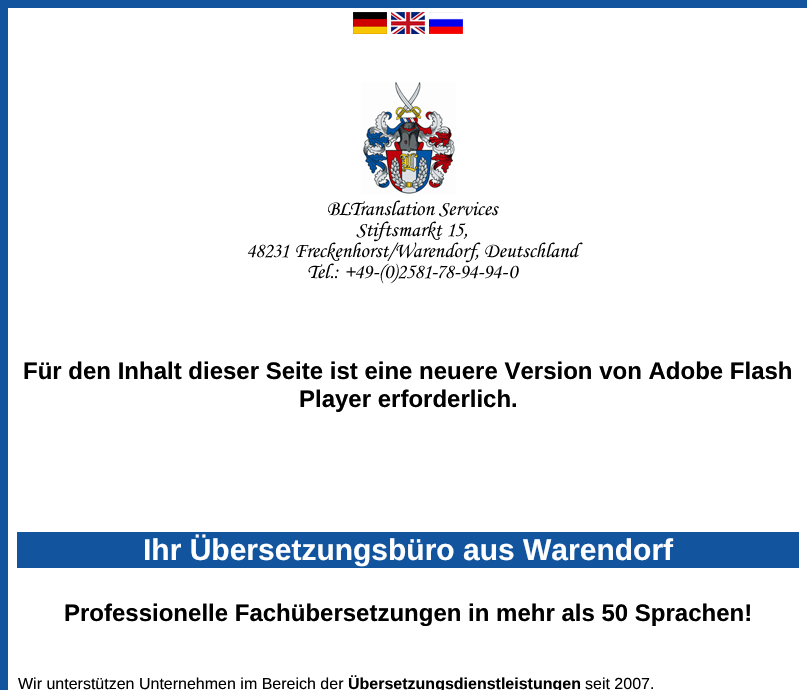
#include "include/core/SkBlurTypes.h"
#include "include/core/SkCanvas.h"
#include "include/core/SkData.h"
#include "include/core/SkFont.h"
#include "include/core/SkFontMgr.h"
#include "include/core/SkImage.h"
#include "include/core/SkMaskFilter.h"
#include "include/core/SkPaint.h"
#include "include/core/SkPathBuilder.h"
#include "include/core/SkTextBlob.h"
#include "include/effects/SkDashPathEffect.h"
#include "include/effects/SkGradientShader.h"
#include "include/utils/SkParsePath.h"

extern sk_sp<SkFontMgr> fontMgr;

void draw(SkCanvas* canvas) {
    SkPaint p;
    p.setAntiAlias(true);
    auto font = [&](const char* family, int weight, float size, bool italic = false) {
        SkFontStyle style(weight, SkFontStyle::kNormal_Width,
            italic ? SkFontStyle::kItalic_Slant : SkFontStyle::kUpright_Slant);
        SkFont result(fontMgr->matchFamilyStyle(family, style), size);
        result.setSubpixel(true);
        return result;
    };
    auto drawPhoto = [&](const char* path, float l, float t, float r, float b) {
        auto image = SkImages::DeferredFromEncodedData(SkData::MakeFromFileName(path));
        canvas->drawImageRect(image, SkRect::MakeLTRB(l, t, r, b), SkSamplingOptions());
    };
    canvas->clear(0xFF12549E);
    p.setColor(0xFFFFFFFF);
    canvas->drawRect(SkRect::MakeLTRB(8, 8, 807, 532), p);
    drawPhoto("media/1.png", 353, 12, 387, 34);
    drawPhoto("media/2.png", 391, 12, 425, 34);
    drawPhoto("media/3.png", 429, 12, 463, 34);
    drawPhoto("media/4.png", 247, 82, 583, 284);
    auto font1 = font("Liberation Sans", 700, 24);
    p.setColor(0xFF000000);
    canvas->drawString("Für den Inhalt dieser Seite ist eine neuere Version von Adobe Flash", 23, 379, font1, p);
    canvas->drawString("Player erforderlich.", 299, 407, font1, p);
    p.setColor(0xFFFFFFFF);
    canvas->drawRect(SkRect::MakeLTRB(8, 532, 17, 658), p);
    auto font2 = font("Liberation Sans", 700, 30);
    canvas->drawString("Ihr Übersetzungsbüro aus Warendorf", 143, 560, font2, p);
    canvas->drawRect(SkRect::MakeLTRB(799, 532, 807, 658), p);
    canvas->drawRect(SkRect::MakeLTRB(17, 568, 799, 658), p);
    p.setColor(0xFF000000);
    canvas->drawString("Professionelle Fachübersetzungen in mehr als 50 Sprachen!", 64, 621, font1, p);
    p.setColor(0xFFFFFFFF);
    canvas->drawRect(SkRect::MakeLTRB(8, 658, 807, 690), p);
    auto font3 = font("Liberation Sans", 400, 16);
    p.setColor(0xFF000000);
    canvas->drawString("Wir unterstützen Unternehmen im Bereich der", 18, 689, font3, p);
    auto font4 = font("Liberation Sans", 700, 16);
    canvas->drawString("Übersetzungsdienstleistungen", 348, 689, font4, p);
    canvas->drawString("seit 2007.", 585, 689, font3, p);
}
